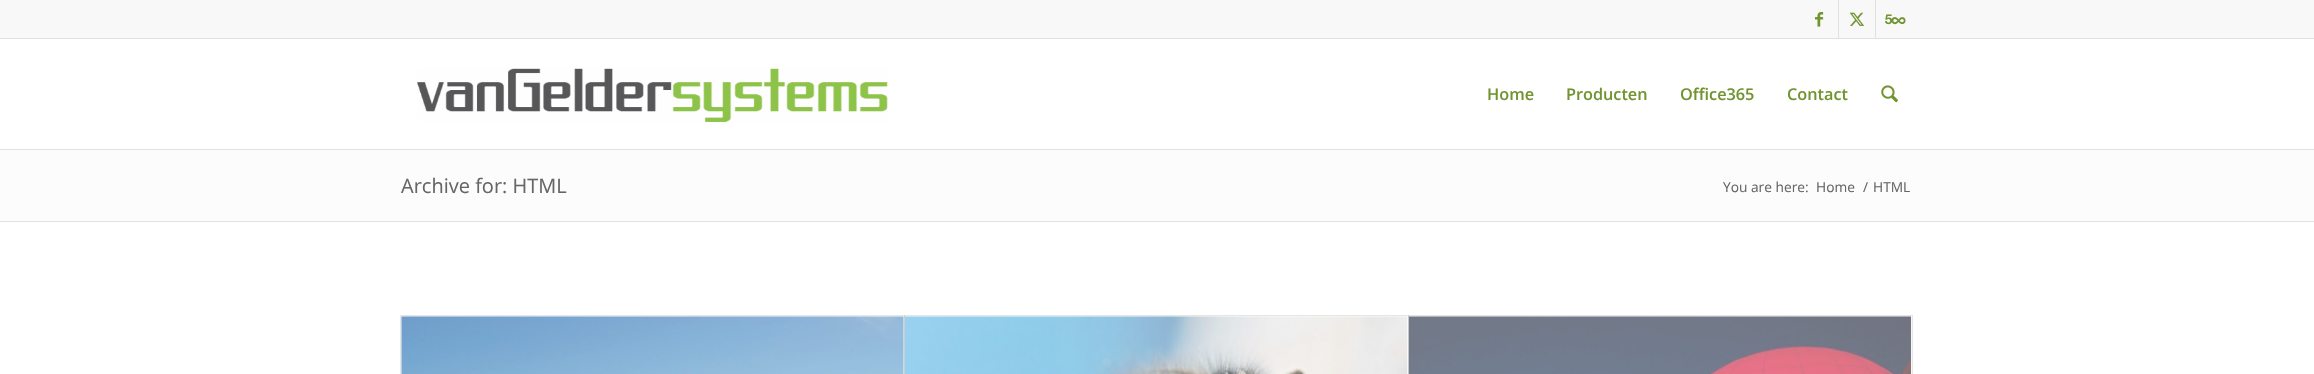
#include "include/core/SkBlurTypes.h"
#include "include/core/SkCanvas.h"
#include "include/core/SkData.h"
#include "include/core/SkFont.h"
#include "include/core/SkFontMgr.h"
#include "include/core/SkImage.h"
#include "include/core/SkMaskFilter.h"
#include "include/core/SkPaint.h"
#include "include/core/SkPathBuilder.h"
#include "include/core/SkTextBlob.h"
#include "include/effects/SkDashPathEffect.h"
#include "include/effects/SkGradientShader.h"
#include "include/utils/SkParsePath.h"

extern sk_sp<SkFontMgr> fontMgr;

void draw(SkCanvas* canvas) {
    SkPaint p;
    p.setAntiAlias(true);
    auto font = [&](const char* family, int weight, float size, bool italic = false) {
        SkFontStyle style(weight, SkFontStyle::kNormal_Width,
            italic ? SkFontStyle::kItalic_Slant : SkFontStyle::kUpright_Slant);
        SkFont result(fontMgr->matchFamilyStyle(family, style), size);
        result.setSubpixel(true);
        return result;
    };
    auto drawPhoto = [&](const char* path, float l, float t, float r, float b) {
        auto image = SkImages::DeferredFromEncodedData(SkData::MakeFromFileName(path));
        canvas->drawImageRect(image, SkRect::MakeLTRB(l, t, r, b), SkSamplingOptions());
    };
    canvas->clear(0xFFFFFFFF);
    {
        const struct { float l, t, r, b; SkColor color; } items[] = {
            {0, 0, 2314, 38, 0xFFF8F8F8},
            {0, 38, 2314, 39, 0xFFE1E1E1},
            {1838, 0, 1839, 38, 0xFFE1E1E1},
        };
        for (auto [l, t, r, b, color] : items) {
            p.setColor(color);
            canvas->drawRect(SkRect::MakeLTRB(l, t, r, b), p);
        }
    }
    drawPhoto("media/1.png", 1815, 12, 1824, 27);
    canvas->drawRect(SkRect::MakeLTRB(1875, 0, 1876, 38), p);
    drawPhoto("media/2.png", 1849, 12, 1865, 26);
    drawPhoto("media/3.png", 1885, 14, 1906, 25);
    canvas->drawRect(SkRect::MakeLTRB(0, 149, 2314, 150), p);
    drawPhoto("media/4.png", 417, 68, 888, 122);
    auto font1 = font("Open Sans", 600, 16.25f);
    p.setColor(0xFF719430);
    {
        const struct { const char* s; float x, y; } items[] = {
            {"Home", 1487, 100},
            {"Producten", 1566, 100},
            {"Office365", 1680, 100},
            {"Contact", 1787, 100},
        };
        for (auto [s, x, y] : items) {
            canvas->drawString(s, x, y, font1, p);
        }
    }
    drawPhoto("media/5.png", 1881, 85, 1898, 103);
    p.setColor(0xFFFCFCFC);
    canvas->drawRect(SkRect::MakeLTRB(0, 150, 2314, 221), p);
    auto font2 = font("Open Sans", 400, 20);
    p.setColor(0xFF666666);
    canvas->drawString("Archive for: HTML", 401, 193, font2, p);
    auto font3 = font("Open Sans", 400, 13.75f);
    {
        const struct { const char* s; float x, y; } items[] = {
            {"You are here:", 1723, 192},
            {"Home", 1816, 192},
            {"/", 1863, 192},
            {"HTML", 1873, 192},
        };
        for (auto [s, x, y] : items) {
            canvas->drawString(s, x, y, font3, p);
        }
    }
    p.setColor(0xFFE1E1E1);
    canvas->drawRect(SkRect::MakeLTRB(0, 221, 2314, 222), p);
    p.setStyle(SkPaint::kStroke_Style);
    p.setStrokeWidth(1);
    p.setColor(0xFFE6E6E6);
    canvas->drawRect(SkRect::MakeLTRB(400.5f, 315.5f, 904.5f, 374.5f), p);
    drawPhoto("media/6.png", 401, 316, 904, 374);
    p.setColor(0x1A000000);
    canvas->drawRect(SkRect::MakeLTRB(904.5f, 315.5f, 1408.5f, 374.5f), p);
    drawPhoto("media/7.png", 905, 316, 1408, 374);
    canvas->drawRect(SkRect::MakeLTRB(1408.5f, 315.5f, 1912.5f, 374.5f), p);
    drawPhoto("media/8.png", 1408, 316, 1912, 374);
}
